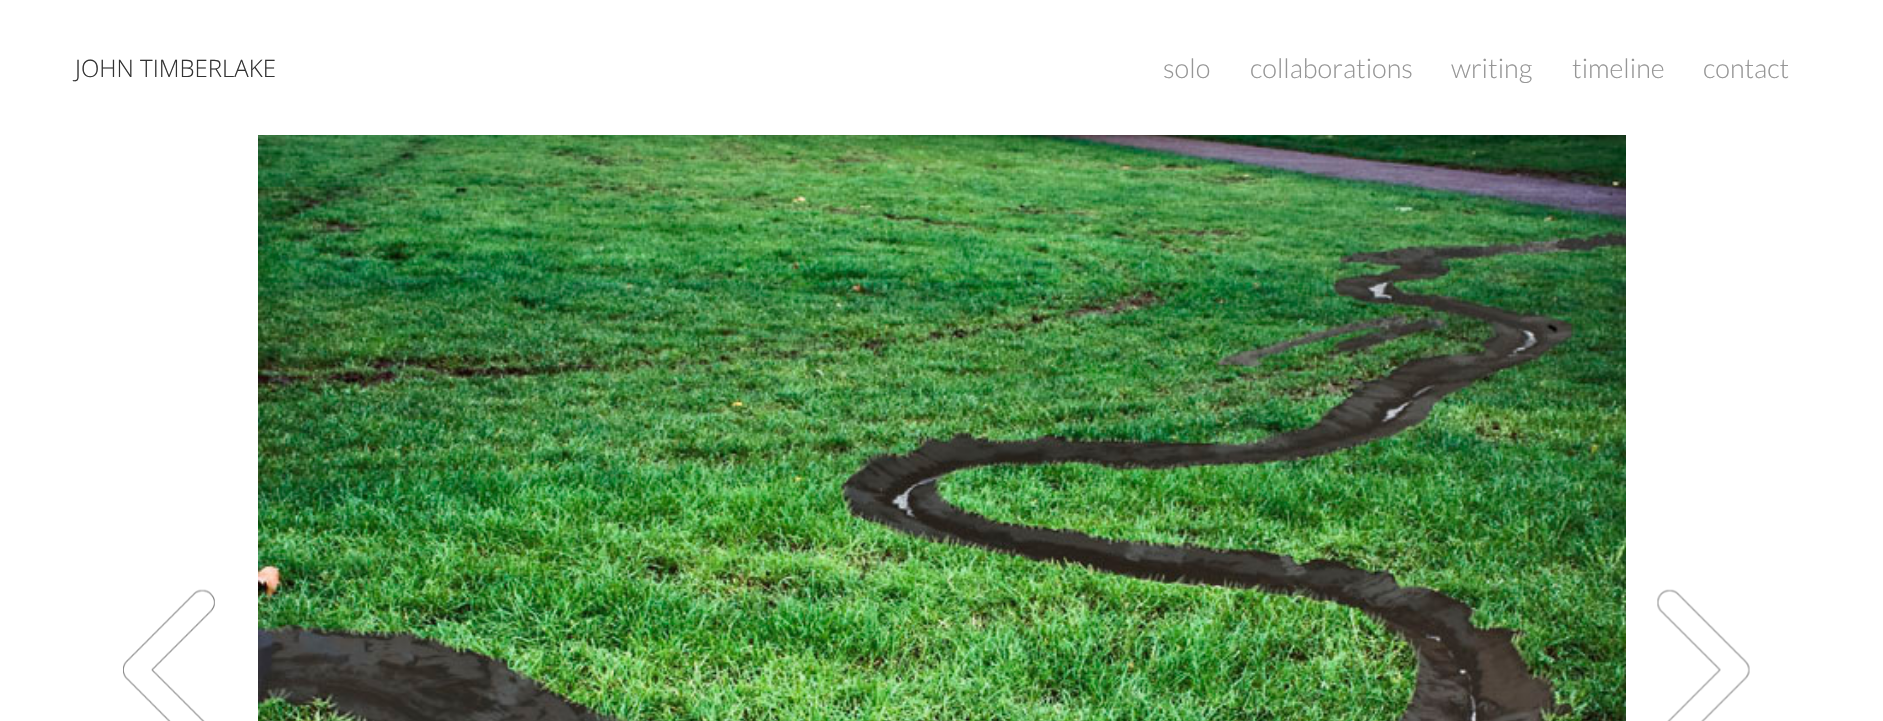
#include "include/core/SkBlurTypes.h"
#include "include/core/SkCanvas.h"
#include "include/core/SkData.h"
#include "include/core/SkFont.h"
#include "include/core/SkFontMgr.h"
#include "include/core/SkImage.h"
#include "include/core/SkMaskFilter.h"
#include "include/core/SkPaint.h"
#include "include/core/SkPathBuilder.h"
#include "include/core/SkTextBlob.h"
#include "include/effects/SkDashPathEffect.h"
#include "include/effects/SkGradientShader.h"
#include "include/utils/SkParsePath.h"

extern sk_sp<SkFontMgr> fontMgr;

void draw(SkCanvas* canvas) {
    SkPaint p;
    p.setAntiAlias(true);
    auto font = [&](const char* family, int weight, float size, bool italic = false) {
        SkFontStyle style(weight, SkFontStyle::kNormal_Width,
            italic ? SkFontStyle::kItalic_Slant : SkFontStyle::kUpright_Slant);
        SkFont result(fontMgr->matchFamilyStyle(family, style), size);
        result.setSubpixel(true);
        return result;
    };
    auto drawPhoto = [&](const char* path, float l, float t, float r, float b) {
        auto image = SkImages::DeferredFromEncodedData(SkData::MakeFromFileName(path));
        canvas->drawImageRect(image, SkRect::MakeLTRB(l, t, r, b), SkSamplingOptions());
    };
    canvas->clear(0xFFFFFFFF);
    auto font1 = font("Open Sans", 300, 24);
    p.setColor(0xFF333333);
    canvas->drawString("JOHN TIMBERLAKE", 75, 77, font1, p);
    auto font2 = font("Lato", 300, 27);
    p.setColor(0xFF969696);
    {
        const struct { const char* s; float x, y; } items[] = {
            {"solo", 1163, 78},
            {"collaborations", 1250, 78},
            {"writing", 1451, 78},
            {"timeline", 1572, 78},
            {"contact", 1703, 78},
        };
        for (auto [s, x, y] : items) {
            canvas->drawString(s, x, y, font2, p);
        }
    }
    drawPhoto("media/1.png", 123, 589, 215, 721);
    drawPhoto("media/2.png", 258, 135, 1626, 721);
    drawPhoto("media/3.png", 1657, 589, 1750, 721);
}
